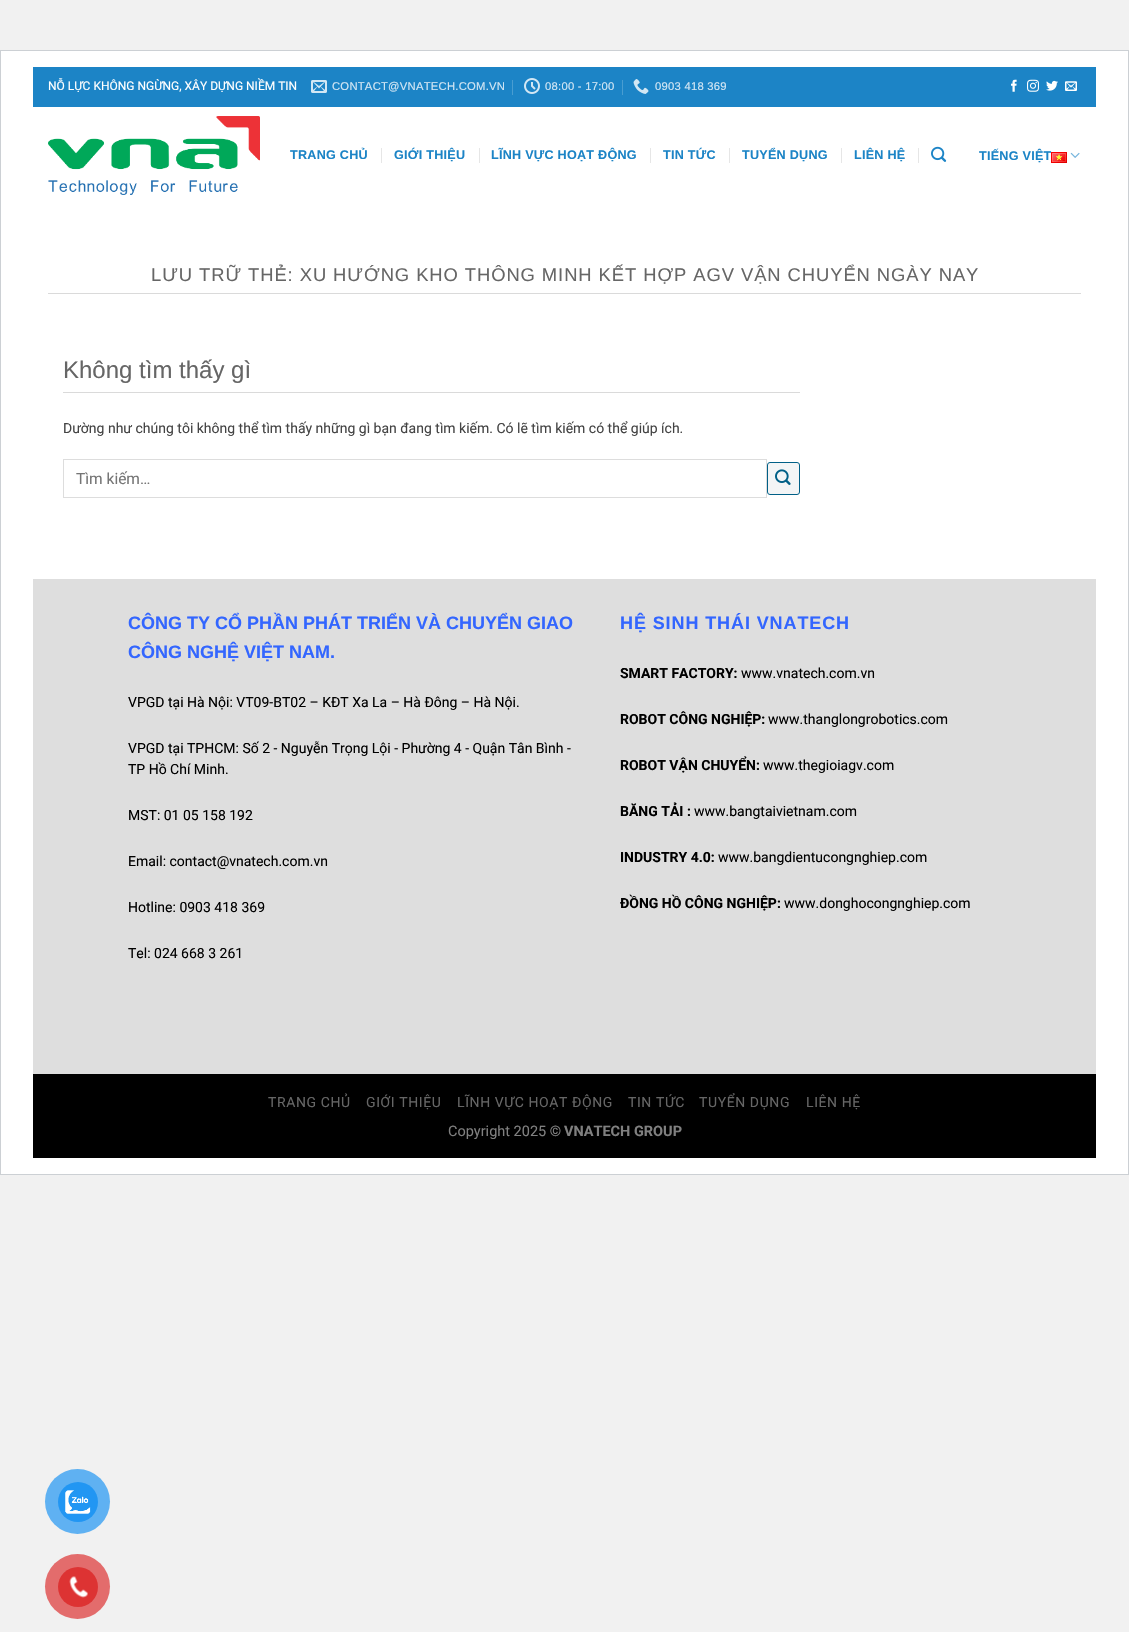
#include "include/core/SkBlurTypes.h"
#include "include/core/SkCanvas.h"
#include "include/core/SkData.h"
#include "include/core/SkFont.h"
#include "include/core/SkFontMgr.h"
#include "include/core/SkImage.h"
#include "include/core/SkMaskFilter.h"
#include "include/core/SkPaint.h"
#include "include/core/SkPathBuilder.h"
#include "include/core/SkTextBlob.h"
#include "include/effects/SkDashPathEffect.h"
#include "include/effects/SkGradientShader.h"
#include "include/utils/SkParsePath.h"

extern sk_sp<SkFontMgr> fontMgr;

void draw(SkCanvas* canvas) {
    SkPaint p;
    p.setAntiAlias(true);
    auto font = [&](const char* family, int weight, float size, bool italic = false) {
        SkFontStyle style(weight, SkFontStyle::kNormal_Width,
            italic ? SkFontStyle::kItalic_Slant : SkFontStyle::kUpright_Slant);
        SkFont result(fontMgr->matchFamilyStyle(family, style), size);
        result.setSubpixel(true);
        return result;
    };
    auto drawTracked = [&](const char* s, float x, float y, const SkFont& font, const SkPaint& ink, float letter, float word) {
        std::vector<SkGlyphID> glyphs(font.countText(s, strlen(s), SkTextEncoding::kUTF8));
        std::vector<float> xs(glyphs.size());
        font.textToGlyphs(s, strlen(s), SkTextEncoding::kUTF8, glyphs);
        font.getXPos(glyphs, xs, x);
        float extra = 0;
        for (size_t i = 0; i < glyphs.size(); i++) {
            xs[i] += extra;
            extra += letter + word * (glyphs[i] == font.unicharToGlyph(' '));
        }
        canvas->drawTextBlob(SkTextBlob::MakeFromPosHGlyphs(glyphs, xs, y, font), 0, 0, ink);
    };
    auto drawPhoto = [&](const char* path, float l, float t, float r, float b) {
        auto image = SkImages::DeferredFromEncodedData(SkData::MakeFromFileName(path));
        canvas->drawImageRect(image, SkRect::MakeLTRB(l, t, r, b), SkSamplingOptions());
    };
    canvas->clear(0xFFF1F1F1);
    p.setColor(0xFFFFFFFF);
    canvas->drawRect(SkRect::MakeLTRB(0.5f, 50.5f, 1128.5f, 1174.5f), p);
    p.setStyle(SkPaint::kStroke_Style);
    p.setStrokeWidth(1);
    p.setColor(0xFFCCD0D4);
    canvas->drawRect(SkRect::MakeLTRB(0.5f, 50.5f, 1128.5f, 1174.5f), p);
    p.setStyle(SkPaint::kFill_Style);
    p.setColor(0xFF1C84C6);
    canvas->drawRect(SkRect::MakeLTRB(33, 67, 1096, 107), p);
    auto font1 = font("Roboto", 400, 12);
    p.setColor(0xFFFFFFFF);
    canvas->drawString("NỖ LỰC KHÔNG NGỪNG, XÂY DỰNG NIỀM TIN", 48, 90, font1, p);
    drawPhoto("media/1.png", 311, 80, 327, 93);
    auto font2 = font("Arimo", 400, 11.25f);
    p.setColor(0xFFD2E6F4);
    drawTracked("CONTACT@VNATECH.COM.VN", 332, 90, font2, p, 0.25f, 0);
    p.setColor(0xFF499DD1);
    canvas->drawRect(SkRect::MakeLTRB(512, 80, 513, 95), p);
    drawPhoto("media/2.png", 524, 78, 540, 94);
    p.setColor(0xFFD2E6F4);
    drawTracked("08:00 - 17:00", 545, 90, font2, p, 0.25f, 0);
    p.setColor(0xFF499DD1);
    canvas->drawRect(SkRect::MakeLTRB(622, 80, 623, 95), p);
    drawPhoto("media/3.png", 633, 79, 649, 94);
    p.setColor(0xFFD2E6F4);
    drawTracked("0903 418 369", 655, 90, font2, p, 0.25f, 0);
    drawPhoto("media/4.png", 1011, 79, 1017, 92);
    drawPhoto("media/5.png", 1027, 79, 1039, 92);
    drawPhoto("media/6.png", 1046, 80, 1058, 91);
    drawPhoto("media/7.png", 1065, 81, 1077, 91);
    drawPhoto("media/8.png", 48, 116, 260, 195);
    auto font3 = font("Arimo", 700, 12.6f);
    p.setColor(0xFF1C84C6);
    drawTracked("TRANG CHỦ", 290, 159, font3, p, 0.25f, 0);
    p.setColor(0xFFE6E6E6);
    canvas->drawRect(SkRect::MakeLTRB(381, 148, 382, 163), p);
    p.setColor(0xFF1C84C6);
    drawTracked("GIỚI THIỆU", 394, 159, font3, p, 0.25f, 0);
    p.setColor(0xFFE6E6E6);
    canvas->drawRect(SkRect::MakeLTRB(479, 148, 480, 163), p);
    p.setColor(0xFF1C84C6);
    drawTracked("LĨNH VỰC HOẠT ĐỘNG", 491, 159, font3, p, 0.25f, 0);
    p.setColor(0xFFE6E6E6);
    canvas->drawRect(SkRect::MakeLTRB(650, 148, 651, 163), p);
    p.setColor(0xFF1C84C6);
    drawTracked("TIN TỨC", 663, 159, font3, p, 0.25f, 0);
    p.setColor(0xFFE6E6E6);
    canvas->drawRect(SkRect::MakeLTRB(729, 148, 730, 163), p);
    p.setColor(0xFF1C84C6);
    drawTracked("TUYỂN DỤNG", 742, 159, font3, p, 0.25f, 0);
    p.setColor(0xFFE6E6E6);
    canvas->drawRect(SkRect::MakeLTRB(841, 148, 842, 163), p);
    p.setColor(0xFF1C84C6);
    drawTracked("LIÊN HỆ", 854, 159, font3, p, 0.25f, 0);
    p.setColor(0xFFE6E6E6);
    canvas->drawRect(SkRect::MakeLTRB(918, 148, 919, 163), p);
    drawPhoto("media/9.png", 931, 146, 947, 162);
    p.setColor(0xFF1C84C6);
    drawTracked("TIẾNG VIỆT", 979, 160, font3, p, 0.25f, 0);
    drawPhoto("media/10.png", 1051, 152, 1067, 163);
    drawPhoto("media/11.png", 1070, 152, 1080, 158);
    p.setColor(0xFFDADADA);
    canvas->drawRect(SkRect::MakeLTRB(48, 293, 1081, 294), p);
    auto font4 = font("Arimo", 400, 18.4f);
    p.setColor(0xFF666666);
    drawTracked("LƯU TRỮ THẺ: XU HƯỚNG KHO THÔNG MINH KẾT HỢP AGV VẬN CHUYỂN NGÀY NAY", 151, 281, font4, p, 0.92f, 0);
    p.setColor(0xFFDADADA);
    canvas->drawRect(SkRect::MakeLTRB(63, 392, 800, 393), p);
    auto font5 = font("Arimo", 400, 24);
    p.setColor(0xFF666666);
    canvas->drawString("Không tìm thấy gì", 63, 378, font5, p);
    auto font6 = font("Roboto", 400, 14);
    p.setColor(0xFF444444);
    canvas->drawString("Dường như chúng tôi không thể tìm thấy những gì bạn đang tìm kiếm. Có lẽ tìm kiếm có thể giúp ích.", 63, 433, font6, p);
    p.setStyle(SkPaint::kStroke_Style);
    p.setColor(0xFFDDDDDD);
    canvas->drawRect(SkRect::MakeLTRB(63.5f, 459.5f, 766.5f, 497.5f), p);
    auto font7 = font("Roboto", 400, 15.5f);
    p.setStyle(SkPaint::kFill_Style);
    p.setColor(0xFF757575);
    canvas->drawString("Tìm kiếm…", 76, 484, font7, p);
    p.setColor(0xFFF3F5F6);
    canvas->drawRoundRect(SkRect::MakeLTRB(767.5f, 462.5f, 799.5f, 494.5f), 2.5f, 2.5f, p);
    p.setStyle(SkPaint::kStroke_Style);
    p.setColor(0xFF016087);
    canvas->drawRoundRect(SkRect::MakeLTRB(767.5f, 462.5f, 799.5f, 494.5f), 2.5f, 2.5f, p);
    drawPhoto("media/12.png", 775, 469, 791, 485);
    p.setStyle(SkPaint::kFill_Style);
    p.setColor(0xFFDEDEDE);
    canvas->drawRect(SkRect::MakeLTRB(33, 579, 1096, 1074), p);
    auto font8 = font("Arimo", 700, 18);
    p.setColor(0xFF3366FF);
    canvas->drawString("CÔNG TY CỔ PHẦN PHÁT TRIỂN VÀ CHUYỂN GIAO", 128, 629, font8, p);
    canvas->drawString("CÔNG NGHỆ VIỆT NAM.", 128, 658, font8, p);
    p.setColor(0xFF000000);
    {
        const struct { const char* s; float x, y; } items[] = {
            {"VPGD tại Hà Nội: VT09-BT02 – KĐT Xa La – Hà Đông – Hà Nội.", 128, 707},
            {"VPGD tại TPHCM: Số 2 - Nguyễn Trọng Lội - Phường 4 - Quận Tân Bình -", 128, 753},
            {"TP Hồ Chí Minh.", 128, 774},
            {"MST: 01 05 158 192", 128, 820},
            {"Email: contact@vnatech.com.vn", 128, 866},
            {"Hotline: 0903 418 369", 128, 912},
            {"Tel: 024 668 3 261", 128, 958},
        };
        for (auto [s, x, y] : items) {
            canvas->drawString(s, x, y, font6, p);
        }
    }
    p.setColor(0xFF3366FF);
    drawTracked("HỆ SINH THÁI VNATECH", 620, 629, font8, p, 0.9f, 0);
    auto font9 = font("Roboto", 700, 14);
    p.setColor(0xFF000000);
    canvas->drawString("SMART FACTORY:", 620, 678, font9, p);
    canvas->drawString("www.vnatech.com.vn", 741, 678, font6, p);
    canvas->drawString("ROBOT CÔNG NGHIỆP:", 620, 724, font9, p);
    canvas->drawString("www.thanglongrobotics.com", 768, 724, font6, p);
    canvas->drawString("ROBOT VẬN CHUYỂN:", 620, 770, font9, p);
    canvas->drawString("www.thegioiagv.com", 763, 770, font6, p);
    canvas->drawString("BĂNG TẢI :", 620, 816, font9, p);
    canvas->drawString("www.bangtaivietnam.com", 694, 816, font6, p);
    canvas->drawString("INDUSTRY 4.0:", 620, 862, font9, p);
    canvas->drawString("www.bangdientucongnghiep.com", 718, 862, font6, p);
    canvas->drawString("ĐỒNG HỒ CÔNG NGHIỆP:", 620, 908, font9, p);
    canvas->drawString("www.donghocongnghiep.com", 784, 908, font6, p);
    canvas->drawRect(SkRect::MakeLTRB(33, 1074, 1096, 1158), p);
    p.setColor(0xFF666666);
    {
        const struct { const char* s; float x, y; } items[] = {
            {"TRANG CHỦ", 268, 1107},
            {"GIỚI THIỆU", 366, 1107},
            {"LĨNH VỰC HOẠT ĐỘNG", 457, 1107},
            {"TIN TỨC", 628, 1107},
            {"TUYỂN DỤNG", 699, 1107},
            {"LIÊN HỆ", 806, 1107},
        };
        for (auto [s, x, y] : items) {
            drawTracked(s, x, y, font6, p, 0.6f, 0);
        }
    }
    auto font10 = font("Roboto", 400, 14.5f);
    p.setColor(0xFF808080);
    canvas->drawString("Copyright 2025 ©", 448, 1136, font10, p);
    auto font11 = font("Roboto", 700, 14.5f);
    canvas->drawString("VNATECH GROUP", 564, 1136, font11, p);
    p.setColor(0xFF5FB1F2);
    canvas->drawCircle(77.5f, 1501.5f, 32.5f, p);
    p.setColor(0xFF2196F3);
    canvas->drawCircle(78, 1502, 20, p);
    drawPhoto("media/13.png", 65, 1490, 91, 1514);
    p.setColor(0xFFE36C6C);
    canvas->drawCircle(77.5f, 1586.5f, 32.5f, p);
    p.setColor(0xFFDD3333);
    canvas->drawCircle(78, 1587, 20, p);
    drawPhoto("media/14.png", 69, 1576, 88, 1598);
}
